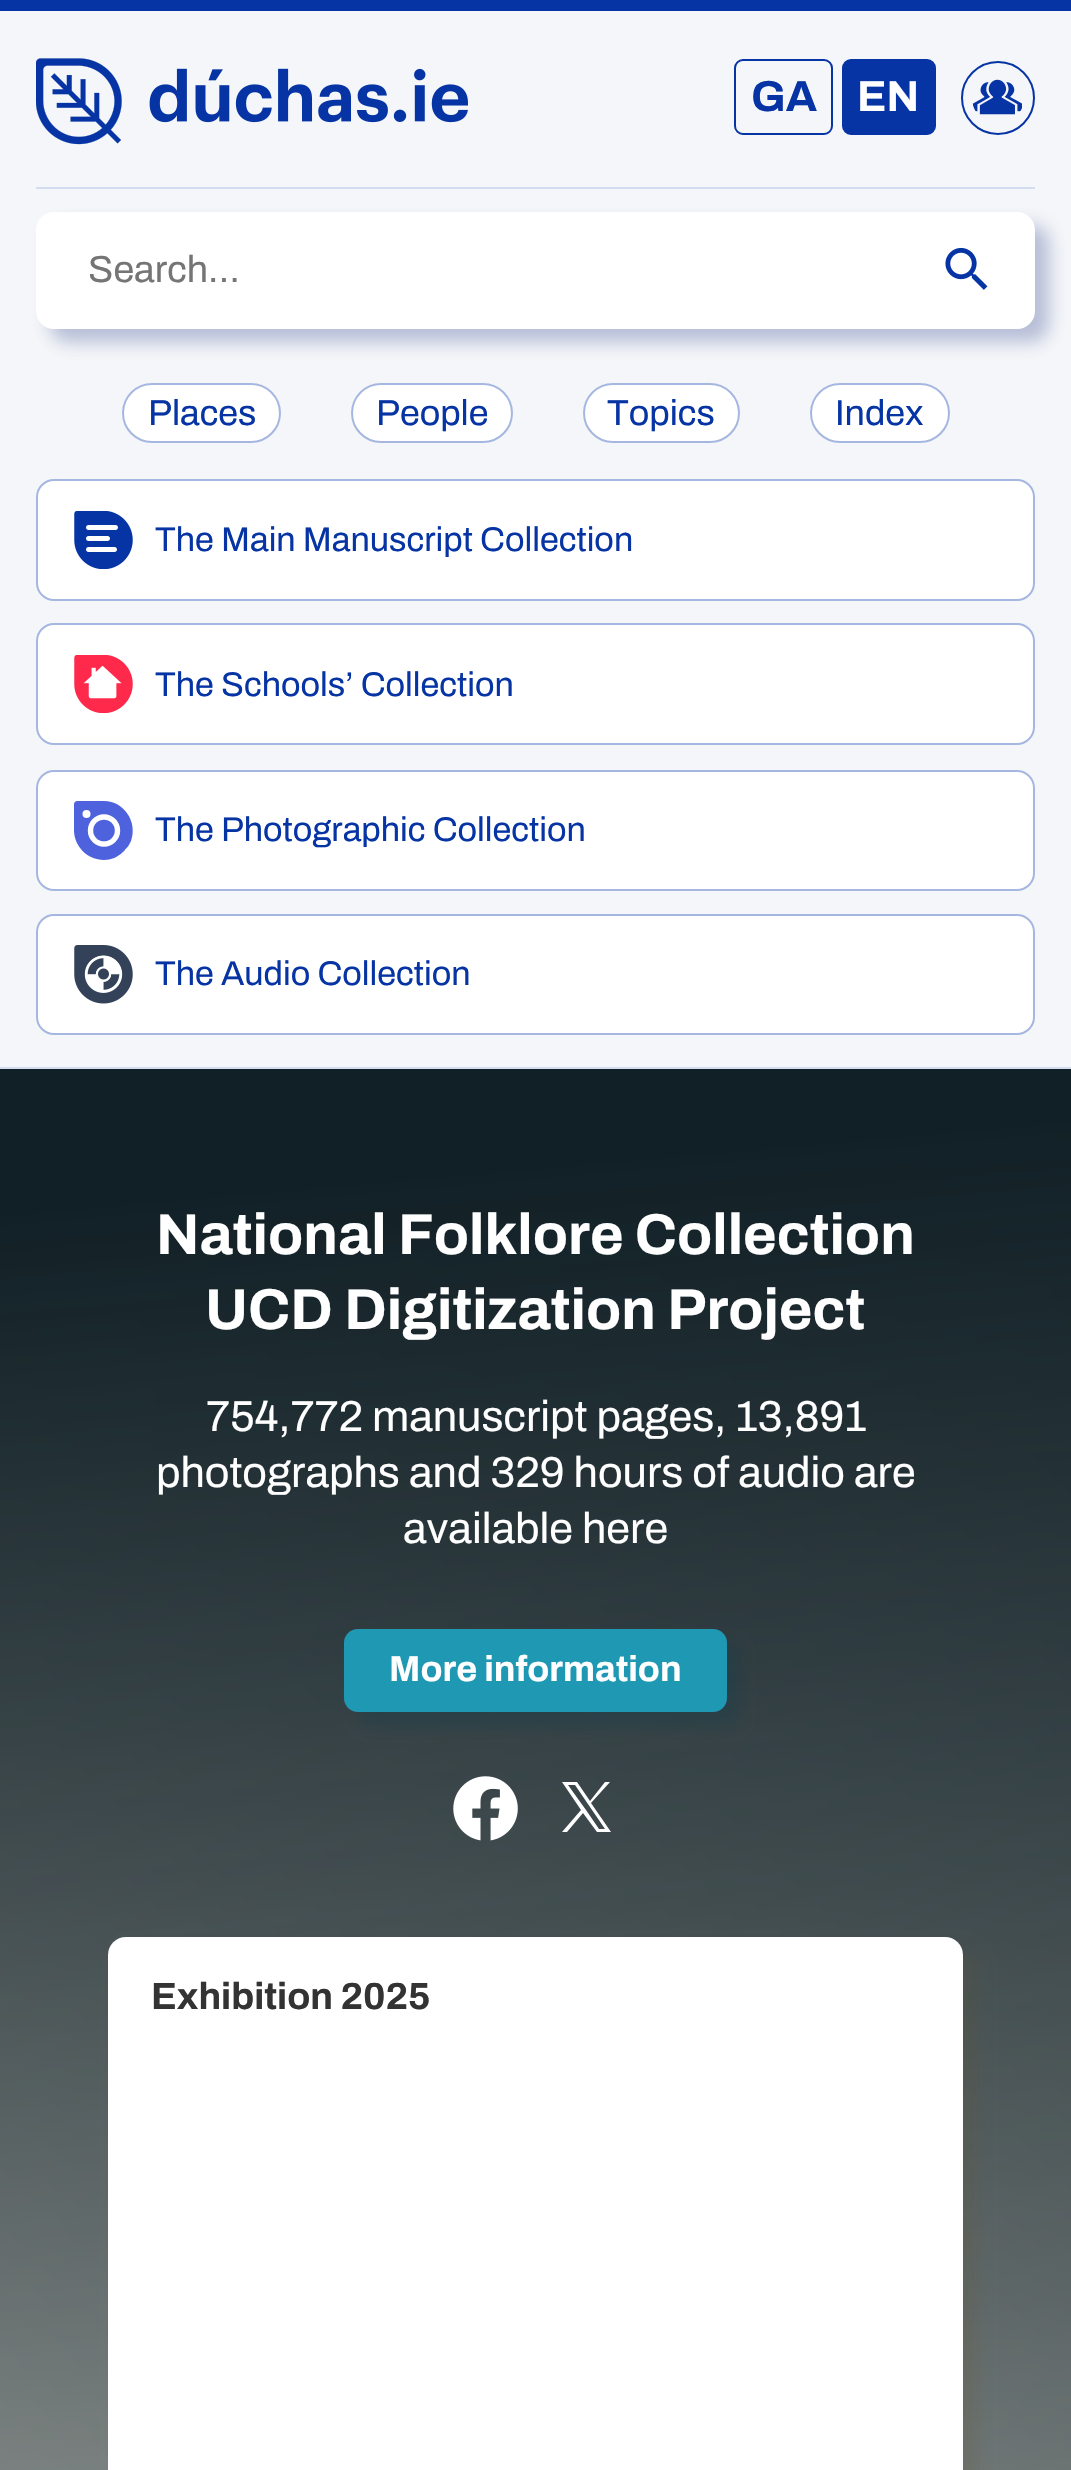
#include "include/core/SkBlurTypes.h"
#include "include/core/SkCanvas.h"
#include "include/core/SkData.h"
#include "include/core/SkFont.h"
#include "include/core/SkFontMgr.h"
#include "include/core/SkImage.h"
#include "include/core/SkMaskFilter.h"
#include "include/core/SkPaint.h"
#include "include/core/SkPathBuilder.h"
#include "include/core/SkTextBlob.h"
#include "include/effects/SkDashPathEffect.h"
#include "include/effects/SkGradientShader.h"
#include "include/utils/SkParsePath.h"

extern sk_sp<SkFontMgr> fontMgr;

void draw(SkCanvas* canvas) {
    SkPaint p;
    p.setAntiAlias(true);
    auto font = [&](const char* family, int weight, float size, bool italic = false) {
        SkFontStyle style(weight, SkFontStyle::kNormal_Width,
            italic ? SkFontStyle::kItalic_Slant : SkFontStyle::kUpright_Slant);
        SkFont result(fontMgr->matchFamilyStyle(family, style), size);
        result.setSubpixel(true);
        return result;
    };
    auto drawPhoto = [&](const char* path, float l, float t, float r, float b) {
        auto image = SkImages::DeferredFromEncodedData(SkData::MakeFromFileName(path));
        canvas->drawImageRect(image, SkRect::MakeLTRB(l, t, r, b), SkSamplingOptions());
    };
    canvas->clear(0xFFF4F6F9);
    p.setColor(0xFFD4DCEF);
    canvas->drawRect(SkRect::MakeLTRB(0, 1067, 1071, 1069), p);
    p.setColor(0xFF0634A4);
    canvas->drawRect(SkRect::MakeLTRB(0, 0, 1071, 11), p);
    drawPhoto("media/1.png", 36, 58, 468, 145);
    p.setStyle(SkPaint::kStroke_Style);
    p.setStrokeWidth(2);
    canvas->drawRoundRect(SkRect::MakeLTRB(735, 60, 832, 134), 8, 8, p);
    auto font1 = font("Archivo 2", 600, 43.25f);
    p.setStyle(SkPaint::kFill_Style);
    canvas->drawString("GA", 751, 111, font1, p);
    canvas->drawRoundRect(SkRect::MakeLTRB(843, 60, 935, 134), 8, 8, p);
    p.setStyle(SkPaint::kStroke_Style);
    canvas->drawRoundRect(SkRect::MakeLTRB(843, 60, 935, 134), 8, 8, p);
    p.setStyle(SkPaint::kFill_Style);
    p.setColor(0xFFFFFFFF);
    canvas->drawString("EN", 857, 111, font1, p);
    p.setStyle(SkPaint::kStroke_Style);
    p.setColor(0xFF0634A4);
    canvas->drawCircle(998, 98, 36, p);
    drawPhoto("media/2.png", 972, 79, 1022, 115);
    p.setStyle(SkPaint::kFill_Style);
    p.setColor(0xFFD4DCEF);
    canvas->drawRect(SkRect::MakeLTRB(36, 187, 1035, 189), p);
    p.setColor(0x4D253786);
    p.setMaskFilter(SkMaskFilter::MakeBlur(kNormal_SkBlurStyle, 9));
    canvas->drawRoundRect(SkRect::MakeLTRB(50, 225, 1049, 342), 18, 18, p);
    p.setMaskFilter(nullptr);
    p.setColor(0xFFFFFFFF);
    canvas->drawRoundRect(SkRect::MakeLTRB(39.5f, 215.5f, 1031.5f, 325.5f), 14.5f, 14.5f, p);
    p.setStyle(SkPaint::kStroke_Style);
    p.setStrokeWidth(7);
    canvas->drawRoundRect(SkRect::MakeLTRB(39.5f, 215.5f, 1031.5f, 325.5f), 14.5f, 14.5f, p);
    auto font2 = font("Archivo", 600, 37.75f);
    p.setStyle(SkPaint::kFill_Style);
    p.setColor(0xFF757575);
    canvas->drawString("Search…", 88, 282, font2, p);
    drawPhoto("media/3.png", 945, 247, 988, 290);
    p.setColor(0xFFFFFFFF);
    canvas->drawRoundRect(SkRect::MakeLTRB(122, 383, 281, 443), 30, 30, p);
    p.setStyle(SkPaint::kStroke_Style);
    p.setStrokeWidth(2);
    p.setColor(0xA6758FCF);
    canvas->drawRoundRect(SkRect::MakeLTRB(123, 384, 280, 442), 29, 29, p);
    auto font3 = font("Archivo", 600, 36);
    p.setStyle(SkPaint::kFill_Style);
    p.setColor(0xFF0634A4);
    canvas->drawString("Places", 148, 425, font3, p);
    p.setColor(0xFFFFFFFF);
    canvas->drawRoundRect(SkRect::MakeLTRB(351, 383, 513, 443), 30, 30, p);
    p.setStyle(SkPaint::kStroke_Style);
    p.setColor(0xA6758FCF);
    canvas->drawRoundRect(SkRect::MakeLTRB(352, 384, 512, 442), 29, 29, p);
    p.setStyle(SkPaint::kFill_Style);
    p.setColor(0xFF0634A4);
    canvas->drawString("People", 376, 425, font3, p);
    p.setColor(0xFFFFFFFF);
    canvas->drawRoundRect(SkRect::MakeLTRB(583, 383, 740, 443), 30, 30, p);
    p.setStyle(SkPaint::kStroke_Style);
    p.setColor(0xA6758FCF);
    canvas->drawRoundRect(SkRect::MakeLTRB(584, 384, 739, 442), 29, 29, p);
    p.setStyle(SkPaint::kFill_Style);
    p.setColor(0xFF0634A4);
    canvas->drawString("Topics", 607, 425, font3, p);
    p.setColor(0xFFFFFFFF);
    canvas->drawRoundRect(SkRect::MakeLTRB(810, 383, 950, 443), 30, 30, p);
    p.setStyle(SkPaint::kStroke_Style);
    p.setColor(0xA6758FCF);
    canvas->drawRoundRect(SkRect::MakeLTRB(811, 384, 949, 442), 29, 29, p);
    p.setStyle(SkPaint::kFill_Style);
    p.setColor(0xFF0634A4);
    canvas->drawString("Index", 835, 425, font3, p);
    p.setColor(0xFFFFFFFF);
    canvas->drawRoundRect(SkRect::MakeLTRB(36, 479, 1035, 601), 18, 18, p);
    p.setStyle(SkPaint::kStroke_Style);
    p.setColor(0xA6758FCF);
    canvas->drawRoundRect(SkRect::MakeLTRB(37, 480, 1034, 600), 17, 17, p);
    drawPhoto("media/4.png", 74, 511, 133, 569);
    auto font4 = font("Archivo", 600, 34.25f);
    p.setStyle(SkPaint::kFill_Style);
    p.setColor(0xFF0634A4);
    canvas->drawString("The Main Manuscript Collection", 155, 551, font4, p);
    p.setColor(0xFFFFFFFF);
    canvas->drawRoundRect(SkRect::MakeLTRB(36, 623, 1035, 745), 18, 18, p);
    p.setStyle(SkPaint::kStroke_Style);
    p.setColor(0xA6758FCF);
    canvas->drawRoundRect(SkRect::MakeLTRB(37, 624, 1034, 744), 17, 17, p);
    drawPhoto("media/5.png", 74, 655, 133, 713);
    p.setStyle(SkPaint::kFill_Style);
    p.setColor(0xFF0634A4);
    canvas->drawString("The Schools’ Collection", 155, 696, font4, p);
    p.setColor(0xFFFFFFFF);
    canvas->drawRoundRect(SkRect::MakeLTRB(36, 770, 1035, 891), 18, 18, p);
    p.setStyle(SkPaint::kStroke_Style);
    p.setColor(0xA6758FCF);
    canvas->drawRoundRect(SkRect::MakeLTRB(37, 771, 1034, 890), 17, 17, p);
    p.setStyle(SkPaint::kFill_Style);
    p.setColor(0xFF4F62DD);
    canvas->drawPath(SkPathBuilder().moveTo(104, 801).lineTo(77, 801).cubicTo(76, 801, 74, 802, 74, 804).lineTo(74, 830).cubicTo(74, 846, 87, 860, 104, 860).cubicTo(111, 860, 118, 857, 123, 852).lineTo(125, 850).cubicTo(125, 849, 128, 848, 131, 841).cubicTo(138, 822, 124, 801, 104, 801).close().detach(), p);
    p.setStyle(SkPaint::kStroke_Style);
    p.setStrokeWidth(5.4f);
    p.setColor(0xFFFFFFFF);
    canvas->drawCircle(104, 830.5f, 13.5f, p);
    p.setStyle(SkPaint::kFill_Style);
    canvas->drawCircle(86.5f, 814, 4, p);
    p.setColor(0xFF0634A4);
    canvas->drawString("The Photographic Collection", 155, 841, font4, p);
    p.setColor(0xFFFFFFFF);
    canvas->drawRoundRect(SkRect::MakeLTRB(36, 914, 1035, 1035), 18, 18, p);
    p.setStyle(SkPaint::kStroke_Style);
    p.setStrokeWidth(2);
    p.setColor(0xA6758FCF);
    canvas->drawRoundRect(SkRect::MakeLTRB(37, 915, 1034, 1034), 17, 17, p);
    drawPhoto("media/6.png", 74, 945, 133, 1004);
    p.setStyle(SkPaint::kFill_Style);
    p.setColor(0xFF0634A4);
    canvas->drawString("The Audio Collection", 155, 985, font4, p);
    {
        const SkColor colors[] = {0xFFECEAE1, 0xFF112026};
        const float stops[] = {0, 1};
        const SkPoint ends[] = {{-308, 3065}, {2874, -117}};
        p.setShader(SkGradientShader::MakeLinear(ends, colors, stops, 2, SkTileMode::kClamp));
        p.setAlpha(255);
    }
    canvas->drawRect(SkRect::MakeLTRB(0, 1132, 1071, 2470), p);
    {
        const SkColor colors[] = {0x00112026, 0xFF112026};
        const float stops[] = {0, 0.94f};
        const SkPoint ends[] = {{640, 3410}, {431, 1031}};
        p.setShader(SkGradientShader::MakeLinear(ends, colors, stops, 2, SkTileMode::kClamp));
        p.setAlpha(255);
    }
    canvas->drawRect(SkRect::MakeLTRB(0, 1069, 1071, 2470), p);
    auto font5 = font("Archivo 2", 600, 57.6f);
    p.setShader(nullptr);
    p.setColor(0xFFFFFFFF);
    canvas->drawString("National Folklore Collection", 156, 1254, font5, p);
    canvas->drawString("UCD Digitization Project", 205, 1329, font5, p);
    auto font6 = font("Archivo", 600, 43.25f);
    {
        const struct { const char* s; float x, y; } items[] = {
            {"754,772 manuscript pages, 13,891", 206, 1431},
            {"photographs and 329 hours of audio are", 156, 1487},
            {"available here", 403, 1543},
        };
        for (auto [s, x, y] : items) {
            canvas->drawString(s, x, y, font6, p);
        }
    }
    p.setColor(0x4D113F4B);
    p.setMaskFilter(SkMaskFilter::MakeBlur(kNormal_SkBlurStyle, 7));
    canvas->drawRoundRect(SkRect::MakeLTRB(358, 1643, 740, 1726), 14, 14, p);
    p.setMaskFilter(nullptr);
    p.setColor(0xFF1F98B4);
    canvas->drawRoundRect(SkRect::MakeLTRB(344, 1629, 727, 1712), 14, 14, p);
    auto font7 = font("Archivo 2", 600, 36);
    p.setColor(0xFFFFFFFF);
    canvas->drawString("More information", 389, 1681, font7, p);
    drawPhoto("media/7.png", 453, 1776, 518, 1841);
    canvas->drawPath(SkPathBuilder().moveTo(591, 1803).lineTo(610, 1782).lineTo(605, 1782).lineTo(590, 1801).lineTo(577, 1782).lineTo(562, 1782).lineTo(581, 1810).lineTo(562, 1832).lineTo(567, 1832).lineTo(583, 1813).lineTo(597, 1832).lineTo(611, 1832).close().moveTo(586, 1810).lineTo(568, 1785).lineTo(575, 1785).lineTo(605, 1829).lineTo(599, 1829).close().detach(), p);
    p.setColor(0x33645532);
    p.setMaskFilter(SkMaskFilter::MakeBlur(kNormal_SkBlurStyle, 9));
    canvas->drawRoundRect(SkRect::MakeLTRB(122, 1951, 977, 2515), 18, 18, p);
    p.setMaskFilter(nullptr);
    p.setColor(0xFFFFFFFF);
    canvas->drawRoundRect(SkRect::MakeLTRB(108, 1937, 963, 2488), 18, 18, p);
    auto font8 = font("Archivo 2", 600, 37.75f);
    p.setColor(0xFF333333);
    canvas->drawString("Exhibition 2025", 151, 2009, font8, p);
}
